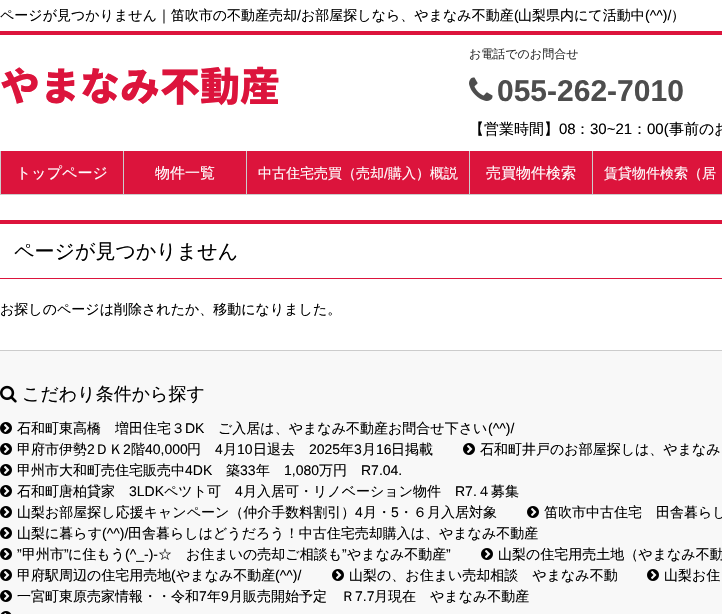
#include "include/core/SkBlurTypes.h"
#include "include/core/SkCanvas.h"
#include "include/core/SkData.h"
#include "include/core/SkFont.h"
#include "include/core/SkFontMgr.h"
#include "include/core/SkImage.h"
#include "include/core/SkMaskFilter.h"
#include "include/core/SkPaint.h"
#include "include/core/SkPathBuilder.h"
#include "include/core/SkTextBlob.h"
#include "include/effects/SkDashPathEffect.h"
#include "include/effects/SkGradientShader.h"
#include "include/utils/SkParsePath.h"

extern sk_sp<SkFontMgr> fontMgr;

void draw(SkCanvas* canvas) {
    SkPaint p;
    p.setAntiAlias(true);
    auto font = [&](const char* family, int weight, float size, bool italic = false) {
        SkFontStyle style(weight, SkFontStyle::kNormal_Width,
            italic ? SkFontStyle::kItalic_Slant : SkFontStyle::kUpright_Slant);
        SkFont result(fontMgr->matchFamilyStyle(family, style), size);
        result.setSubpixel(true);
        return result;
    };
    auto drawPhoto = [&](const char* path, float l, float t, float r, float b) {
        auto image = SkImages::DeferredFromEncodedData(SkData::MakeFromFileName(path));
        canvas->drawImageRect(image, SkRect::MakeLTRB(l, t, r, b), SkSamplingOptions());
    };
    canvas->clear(0xFFFFFFFF);
    p.setColor(0xFFDC143C);
    canvas->drawRect(SkRect::MakeLTRB(0, 31, 722, 35), p);
    auto font1 = font("WenQuanYi Zen Hei", 500, 14);
    p.setColor(0xFF000000);
    canvas->drawString("ページが見つかりません｜笛吹市の不動産売却", 0, 20, font1, p);
    auto font2 = font("Liberation Sans", 400, 14);
    canvas->drawString("/", 297, 20, font2, p);
    canvas->drawString("お部屋探しなら、やまなみ不動産", 301, 20, font1, p);
    canvas->drawString("(", 514, 20, font2, p);
    canvas->drawString("山梨県内にて活動中", 518, 20, font1, p);
    canvas->drawString("(^^)/", 645, 20, font2, p);
    canvas->drawString("）", 671, 20, font1, p);
    auto font3 = font("Noto Sans JP", 900, 40);
    p.setColor(0xFFDC143C);
    canvas->drawString("やまなみ不動産", 0, 101, font3, p);
    auto font4 = font("WenQuanYi Zen Hei", 500, 12);
    p.setColor(0xFF333333);
    canvas->drawString("お電話でのお問合せ", 469, 58, font4, p);
    drawPhoto("media/1.png", 469, 77, 493, 101);
    auto font5 = font("Liberation Sans", 700, 30);
    p.setColor(0xFF4D4D4D);
    canvas->drawString("055-262-7010", 497, 101, font5, p);
    auto font6 = font("WenQuanYi Zen Hei", 500, 15);
    p.setColor(0xFF000000);
    canvas->drawString("【営業時間】", 469, 134, font6, p);
    auto font7 = font("Liberation Sans", 400, 15);
    canvas->drawString("08", 559, 134, font7, p);
    canvas->drawString("：", 575, 134, font6, p);
    canvas->drawString("30~21", 590, 134, font7, p);
    canvas->drawString("：", 632, 134, font6, p);
    canvas->drawString("00(", 647, 134, font7, p);
    canvas->drawString("事前のお", 669, 134, font6, p);
    {
        const struct { float l, t, r, b; SkColor color; } items[] = {
            {1, 151, 722, 194, 0xFFDC143C},
            {0, 194, 722, 195, 0xFFCCCCCC},
            {123, 151, 124, 194, 0xFFCCCCCC},
            {0, 151, 1, 194, 0xFFCCCCCC},
        };
        for (auto [l, t, r, b, color] : items) {
            p.setColor(color);
            canvas->drawRect(SkRect::MakeLTRB(l, t, r, b), p);
        }
    }
    p.setColor(0xFFFFFFFF);
    canvas->drawString("トップページ", 16, 178, font6, p);
    p.setColor(0xFFCCCCCC);
    canvas->drawRect(SkRect::MakeLTRB(246, 151, 247, 194), p);
    p.setColor(0xFFFFFFFF);
    canvas->drawString("物件一覧", 155, 178, font6, p);
    p.setColor(0xFFCCCCCC);
    canvas->drawRect(SkRect::MakeLTRB(469, 151, 470, 194), p);
    p.setColor(0xFFFFFFFF);
    canvas->drawString("中古住宅売買（売却", 258, 178, font1, p);
    canvas->drawString("/", 384, 178, font2, p);
    canvas->drawString("購入）概説", 388, 178, font1, p);
    p.setColor(0xFFCCCCCC);
    canvas->drawRect(SkRect::MakeLTRB(592, 151, 593, 194), p);
    p.setColor(0xFFFFFFFF);
    canvas->drawString("売買物件検索", 486, 178, font6, p);
    canvas->drawString("賃貸物件検索（居", 604, 178, font1, p);
    p.setColor(0xFFDC143C);
    canvas->drawRect(SkRect::MakeLTRB(0, 220, 722, 224), p);
    canvas->drawRect(SkRect::MakeLTRB(0, 278, 722, 279), p);
    auto font8 = font("WenQuanYi Zen Hei", 500, 20);
    p.setColor(0xFF000000);
    canvas->drawString("ページが見つかりません", 14, 258, font8, p);
    canvas->drawString("お探しのページは削除されたか、移動になりました。", 0, 314, font1, p);
    p.setColor(0xFFF8F8F8);
    canvas->drawRect(SkRect::MakeLTRB(0, 351, 722, 614), p);
    p.setColor(0xFFCCCCCC);
    canvas->drawRect(SkRect::MakeLTRB(0, 350, 722, 351), p);
    drawPhoto("media/2.png", 0, 385, 17, 403);
    auto font9 = font("WenQuanYi Zen Hei", 500, 18);
    p.setColor(0xFF000000);
    canvas->drawString("こだわり条件から探す", 22, 400, font9, p);
    drawPhoto("media/3.png", 0, 422, 12, 434);
    canvas->drawString("石和町東高橋　増田住宅３", 17, 433, font1, p);
    canvas->drawString("DK", 185, 433, font2, p);
    canvas->drawString("ご入居は、やまなみ不動産お問合せ下さい", 218, 433, font1, p);
    canvas->drawString("(^^)/", 488, 433, font2, p);
    drawPhoto("media/3.png", 0, 443, 12, 455);
    canvas->drawString("甲府市伊勢", 17, 454, font1, p);
    canvas->drawString("2", 87, 454, font2, p);
    canvas->drawString("ＤＫ", 95, 454, font1, p);
    canvas->drawString("2", 123, 454, font2, p);
    canvas->drawString("階", 131, 454, font1, p);
    canvas->drawString("40,000", 145, 454, font2, p);
    canvas->drawString("円", 187, 454, font1, p);
    canvas->drawString("4", 215, 454, font2, p);
    canvas->drawString("月", 223, 454, font1, p);
    canvas->drawString("10", 237, 454, font2, p);
    canvas->drawString("日退去", 253, 454, font1, p);
    canvas->drawString("2025", 309, 454, font2, p);
    canvas->drawString("年", 340, 454, font1, p);
    canvas->drawString("3", 354, 454, font2, p);
    canvas->drawString("月", 362, 454, font1, p);
    canvas->drawString("16", 376, 454, font2, p);
    canvas->drawString("日掲載", 391, 454, font1, p);
    drawPhoto("media/3.png", 463, 443, 475, 455);
    canvas->drawString("石和町井戸のお部屋探しは、やまなみ", 480, 454, font1, p);
    drawPhoto("media/3.png", 0, 464, 12, 476);
    canvas->drawString("甲州市大和町売住宅販売中", 17, 475, font1, p);
    canvas->drawString("4DK", 185, 475, font2, p);
    canvas->drawString("築", 226, 475, font1, p);
    canvas->drawString("33", 240, 475, font2, p);
    canvas->drawString("年", 256, 475, font1, p);
    canvas->drawString("1,080", 284, 475, font2, p);
    canvas->drawString("万円", 319, 475, font1, p);
    canvas->drawString("R7.04.", 361, 475, font2, p);
    drawPhoto("media/3.png", 0, 485, 12, 497);
    canvas->drawString("石和町唐柏貸家", 17, 496, font1, p);
    canvas->drawString("3LDK", 129, 496, font2, p);
    canvas->drawString("ペツト可", 164, 496, font1, p);
    canvas->drawString("4", 235, 496, font2, p);
    canvas->drawString("月入居可・リノベーション物件", 243, 496, font1, p);
    canvas->drawString("R7.", 455, 496, font2, p);
    canvas->drawString("４募集", 477, 496, font1, p);
    drawPhoto("media/3.png", 0, 506, 12, 518);
    canvas->drawString("山梨お部屋探し応援キャンペーン（仲介手数料割引）", 17, 517, font1, p);
    canvas->drawString("4", 355, 517, font2, p);
    canvas->drawString("月・", 363, 517, font1, p);
    canvas->drawString("5", 391, 517, font2, p);
    canvas->drawString("・６月入居対象", 399, 517, font1, p);
    drawPhoto("media/3.png", 527, 506, 539, 518);
    canvas->drawString("笛吹市中古住宅　田舎暮らし", 544, 517, font1, p);
    drawPhoto("media/3.png", 0, 527, 12, 539);
    canvas->drawString("山梨に暮らす", 17, 538, font1, p);
    canvas->drawString("(^^)/", 102, 538, font2, p);
    canvas->drawString("田舎暮らしはどうだろう！中古住宅売却購入は、やまなみ不動産", 128, 538, font1, p);
    drawPhoto("media/3.png", 0, 548, 12, 560);
    canvas->drawString("”", 17, 559, font2, p);
    canvas->drawString("甲州市", 22, 559, font1, p);
    canvas->drawString("”", 64, 559, font2, p);
    canvas->drawString("に住もう", 68, 559, font1, p);
    canvas->drawString("(^_-)-", 125, 559, font2, p);
    canvas->drawString("☆　お住まいの売却ご相談も", 158, 559, font1, p);
    canvas->drawString("”", 342, 559, font2, p);
    canvas->drawString("やまなみ不動産", 347, 559, font1, p);
    canvas->drawString("”", 446, 559, font2, p);
    drawPhoto("media/3.png", 481, 548, 493, 560);
    canvas->drawString("山梨の住宅用売土地（やまなみ不動", 498, 559, font1, p);
    drawPhoto("media/3.png", 0, 569, 12, 581);
    canvas->drawString("甲府駅周辺の住宅用売地", 17, 580, font1, p);
    canvas->drawString("(", 171, 580, font2, p);
    canvas->drawString("やまなみ不動産", 176, 580, font1, p);
    canvas->drawString("(^^)/", 275, 580, font2, p);
    drawPhoto("media/3.png", 332, 569, 344, 581);
    canvas->drawString("山梨の、お住まい売却相談　やまなみ不動", 349, 580, font1, p);
    drawPhoto("media/3.png", 647, 569, 659, 581);
    canvas->drawString("山梨お住", 664, 580, font1, p);
    drawPhoto("media/3.png", 0, 590, 12, 602);
    canvas->drawString("一宮町東原売家情報・・令和", 17, 601, font1, p);
    canvas->drawString("7", 199, 601, font2, p);
    canvas->drawString("年", 207, 601, font1, p);
    canvas->drawString("9", 221, 601, font2, p);
    canvas->drawString("月販売開始予定　Ｒ", 229, 601, font1, p);
    canvas->drawString("7.7", 355, 601, font2, p);
    canvas->drawString("月現在　やまなみ不動産", 374, 601, font1, p);
    drawPhoto("media/4.png", 0, 611, 12, 614);
}
